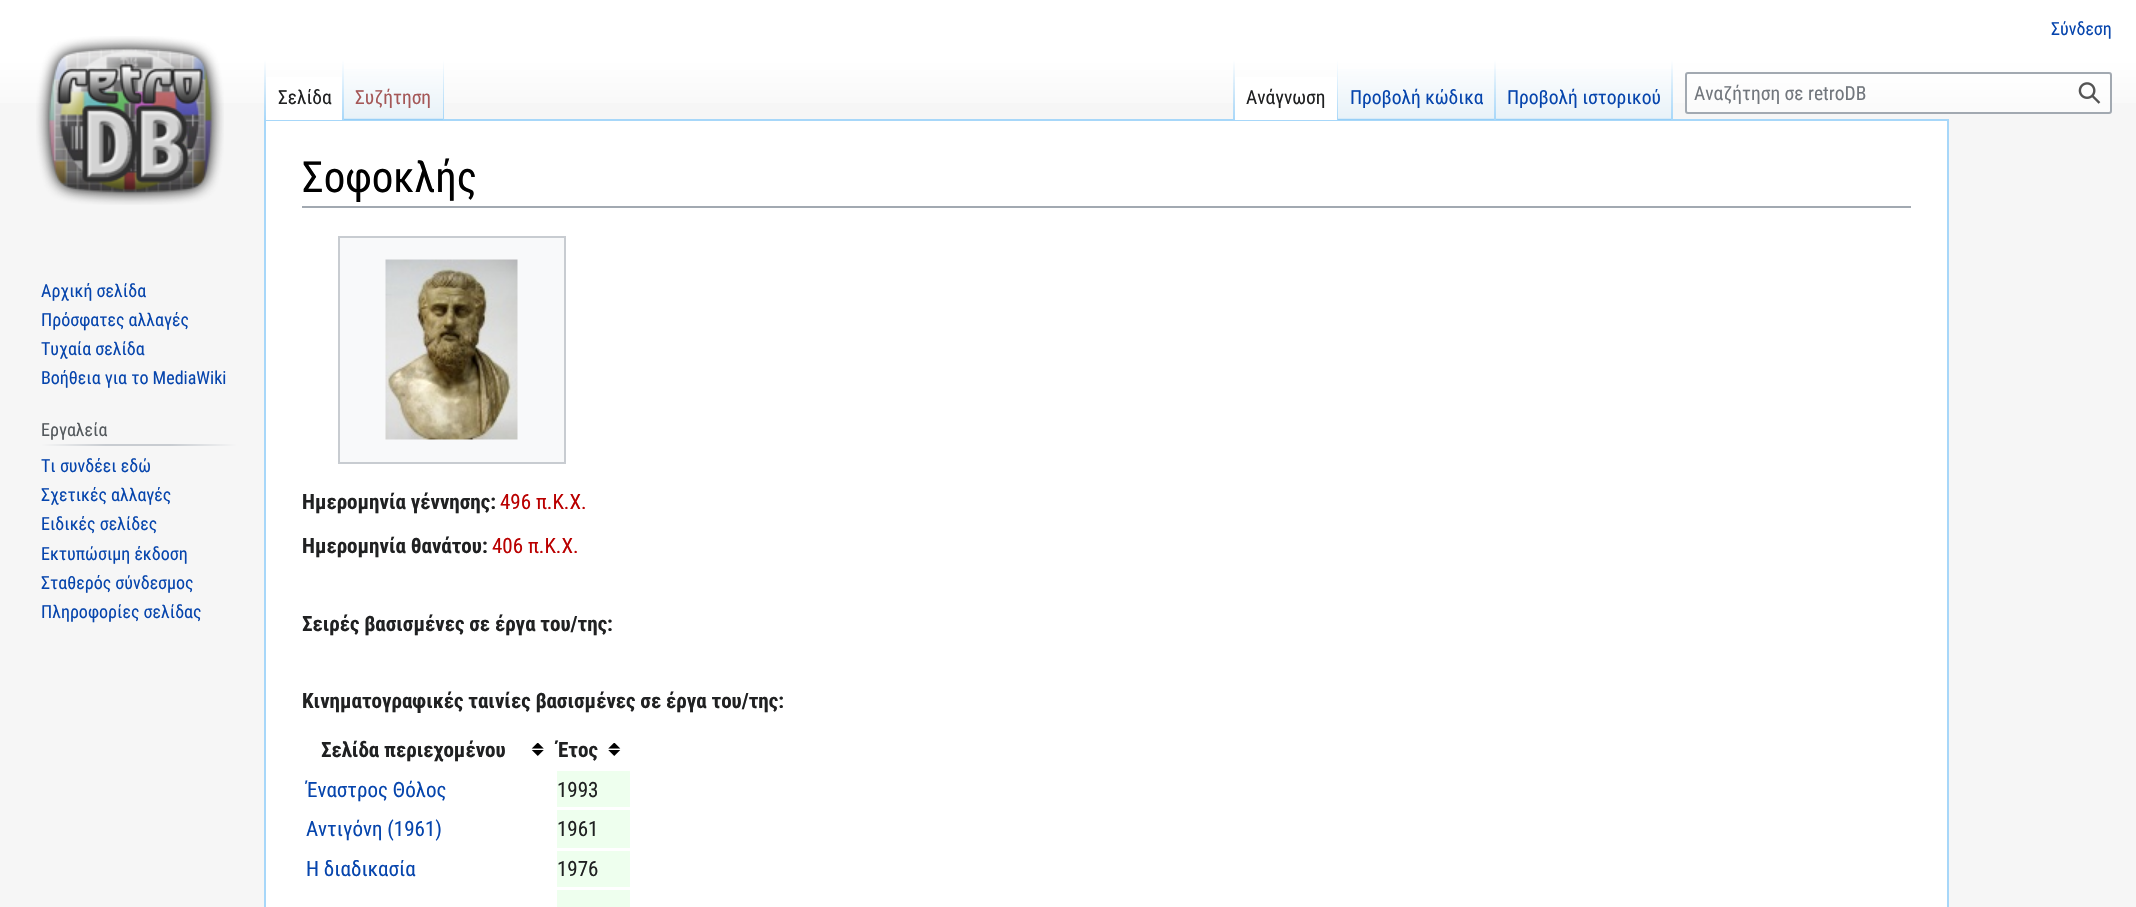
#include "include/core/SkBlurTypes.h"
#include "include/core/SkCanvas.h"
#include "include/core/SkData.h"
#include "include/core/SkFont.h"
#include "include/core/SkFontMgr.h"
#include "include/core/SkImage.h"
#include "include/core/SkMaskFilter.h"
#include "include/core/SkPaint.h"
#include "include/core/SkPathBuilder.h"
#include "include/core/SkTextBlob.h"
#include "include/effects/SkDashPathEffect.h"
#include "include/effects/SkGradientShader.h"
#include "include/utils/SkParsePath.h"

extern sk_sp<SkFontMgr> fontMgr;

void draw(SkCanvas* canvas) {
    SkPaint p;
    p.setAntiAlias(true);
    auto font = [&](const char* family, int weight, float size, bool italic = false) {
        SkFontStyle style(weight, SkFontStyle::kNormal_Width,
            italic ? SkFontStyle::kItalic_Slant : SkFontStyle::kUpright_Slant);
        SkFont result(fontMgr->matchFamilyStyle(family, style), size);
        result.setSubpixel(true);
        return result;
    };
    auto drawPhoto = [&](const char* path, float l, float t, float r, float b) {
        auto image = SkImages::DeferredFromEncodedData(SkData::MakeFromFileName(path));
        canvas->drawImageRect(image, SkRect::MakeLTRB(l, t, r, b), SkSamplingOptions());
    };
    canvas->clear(0xFFF6F6F6);
    {
        const SkColor colors[] = {0xFFFFFFFF, 0xFFF6F6F6};
        const float stops[] = {0.5f, 1};
        const SkPoint ends[] = {{1068, 0}, {1068, 120}};
        p.setShader(SkGradientShader::MakeLinear(ends, colors, stops, 2, SkTileMode::kClamp));
        p.setAlpha(255);
    }
    canvas->drawRect(SkRect::MakeLTRB(0, 0, 2136, 103), p);
    auto font1 = font("Roboto Condensed", 400, 18);
    p.setShader(nullptr);
    p.setColor(0xFF0645AD);
    canvas->drawString("Σύνδεση", 2051, 35, font1, p);
    p.setColor(0xFFFFFFFF);
    canvas->drawRect(SkRect::MakeLTRB(265, 120, 1948, 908), p);
    p.setStyle(SkPaint::kStroke_Style);
    p.setStrokeWidth(2);
    p.setColor(0xFFA7D7F9);
    canvas->drawRect(SkRect::MakeLTRB(265, 120, 1948, 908), p);
    p.setStyle(SkPaint::kFill_Style);
    {
        const SkColor colors[] = {0x00A7D7F9, 0xFFA7D7F9};
        const float stops[] = {0, 1};
        const SkPoint ends[] = {{265, 60}, {265, 120}};
        p.setShader(SkGradientShader::MakeLinear(ends, colors, stops, 2, SkTileMode::kClamp));
        p.setAlpha(255);
    }
    canvas->drawRect(SkRect::MakeLTRB(264, 60, 266, 120), p);
    p.setShader(nullptr);
    p.setColor(0xFFFFFFFF);
    canvas->drawRect(SkRect::MakeLTRB(266, 77, 342, 120), p);
    {
        const SkColor colors[] = {0xFFFFFFFF, 0xFFA7D7F9};
        const float stops[] = {0, 1};
        const SkPoint ends[] = {{343, 60}, {343, 120}};
        p.setShader(SkGradientShader::MakeLinear(ends, colors, stops, 2, SkTileMode::kClamp));
        p.setAlpha(255);
    }
    canvas->drawRect(SkRect::MakeLTRB(342, 60, 344, 120), p);
    auto font2 = font("Roboto Condensed", 400, 19.5f);
    p.setShader(nullptr);
    p.setColor(0xFF202122);
    canvas->drawString("Σελίδα", 278, 104, font2, p);
    {
        const SkColor colors[] = {0xFF77C1F6, 0xFFE8F2F8, 0xFFFFFFFF};
        const float stops[] = {0, 0.03f, 1};
        const SkPoint ends[] = {{394, 120}, {394, 60}};
        p.setShader(SkGradientShader::MakeLinear(ends, colors, stops, 3, SkTileMode::kClamp));
        p.setAlpha(255);
    }
    canvas->drawRect(SkRect::MakeLTRB(344, 69, 444, 120), p);
    {
        const SkColor colors[] = {0x00A7D7F9, 0xFFA7D7F9};
        const float stops[] = {0, 1};
        const SkPoint ends[] = {{443, 60}, {443, 120}};
        p.setShader(SkGradientShader::MakeLinear(ends, colors, stops, 2, SkTileMode::kClamp));
        p.setAlpha(255);
    }
    canvas->drawRect(SkRect::MakeLTRB(443, 60, 444, 120), p);
    p.setShader(nullptr);
    p.setColor(0xFFA55858);
    canvas->drawString("Συζήτηση", 355, 104, font2, p);
    {
        const SkColor colors[] = {0x00A7D7F9, 0xFFA7D7F9};
        const float stops[] = {0, 1};
        const SkPoint ends[] = {{1234, 60}, {1234, 120}};
        p.setShader(SkGradientShader::MakeLinear(ends, colors, stops, 2, SkTileMode::kClamp));
        p.setAlpha(255);
    }
    canvas->drawRect(SkRect::MakeLTRB(1233, 60, 1235, 120), p);
    p.setShader(nullptr);
    p.setColor(0xFFFFFFFF);
    canvas->drawRect(SkRect::MakeLTRB(1235, 77, 1337, 120), p);
    {
        const SkColor colors[] = {0xFFFFFFFF, 0xFFA7D7F9};
        const float stops[] = {0, 1};
        const SkPoint ends[] = {{1337, 60}, {1337, 120}};
        p.setShader(SkGradientShader::MakeLinear(ends, colors, stops, 2, SkTileMode::kClamp));
        p.setAlpha(255);
    }
    canvas->drawRect(SkRect::MakeLTRB(1337, 60, 1338, 120), p);
    p.setShader(nullptr);
    p.setColor(0xFF202122);
    canvas->drawString("Ανάγνωση", 1246, 104, font2, p);
    {
        const SkColor colors[] = {0xFF77C1F6, 0xFFE8F2F8, 0xFFFFFFFF};
        const float stops[] = {0, 0.03f, 1};
        const SkPoint ends[] = {{1417, 120}, {1417, 60}};
        p.setShader(SkGradientShader::MakeLinear(ends, colors, stops, 3, SkTileMode::kClamp));
        p.setAlpha(255);
    }
    canvas->drawRect(SkRect::MakeLTRB(1338, 69, 1496, 120), p);
    {
        const SkColor colors[] = {0x00A7D7F9, 0xFFA7D7F9};
        const float stops[] = {0, 1};
        const SkPoint ends[] = {{1495, 60}, {1495, 120}};
        p.setShader(SkGradientShader::MakeLinear(ends, colors, stops, 2, SkTileMode::kClamp));
        p.setAlpha(255);
    }
    canvas->drawRect(SkRect::MakeLTRB(1494, 60, 1496, 120), p);
    p.setShader(nullptr);
    p.setColor(0xFF0645AD);
    canvas->drawString("Προβολή κώδικα", 1350, 104, font2, p);
    {
        const SkColor colors[] = {0xFF77C1F6, 0xFFE8F2F8, 0xFFFFFFFF};
        const float stops[] = {0, 0.03f, 1};
        const SkPoint ends[] = {{1584, 120}, {1584, 60}};
        p.setShader(SkGradientShader::MakeLinear(ends, colors, stops, 3, SkTileMode::kClamp));
        p.setAlpha(255);
    }
    canvas->drawRect(SkRect::MakeLTRB(1496, 69, 1673, 120), p);
    {
        const SkColor colors[] = {0x00A7D7F9, 0xFFA7D7F9};
        const float stops[] = {0, 1};
        const SkPoint ends[] = {{1672, 60}, {1672, 120}};
        p.setShader(SkGradientShader::MakeLinear(ends, colors, stops, 2, SkTileMode::kClamp));
        p.setAlpha(255);
    }
    canvas->drawRect(SkRect::MakeLTRB(1671, 60, 1673, 120), p);
    p.setShader(nullptr);
    p.setColor(0xFF0645AD);
    canvas->drawString("Προβολή ιστορικού", 1507, 104, font2, p);
    p.setColor(0x80FFFFFF);
    canvas->drawRoundRect(SkRect::MakeLTRB(1686, 73, 2111, 113), 2, 2, p);
    p.setStyle(SkPaint::kStroke_Style);
    p.setColor(0xFFA2A9B1);
    canvas->drawRoundRect(SkRect::MakeLTRB(1686, 73, 2111, 113), 2, 2, p);
    p.setStyle(SkPaint::kFill_Style);
    p.setColor(0xFF72777D);
    canvas->drawString("Αναζήτηση σε retroDB", 1694, 100, font2, p);
    drawPhoto("media/1.png", 2078, 82, 2101, 104);
    drawPhoto("media/2.png", 36, 36, 224, 205);
    p.setColor(0xFF0645AD);
    {
        const struct { const char* s; float x, y; } items[] = {
            {"Αρχική σελίδα", 41, 297},
            {"Πρόσφατες αλλαγές", 41, 326},
            {"Τυχαία σελίδα", 41, 355},
            {"Βοήθεια για το MediaWiki", 41, 384},
        };
        for (auto [s, x, y] : items) {
            canvas->drawString(s, x, y, font1, p);
        }
    }
    {
        const SkColor colors[] = {0xFFF6F6F6, 0xFFC8CCD1, 0xFFC8CCD1, 0xFFF6F6F6};
        const float stops[] = {0, 0.33f, 0.66f, 1};
        const SkPoint ends[] = {{41, 445}, {237, 445}};
        p.setShader(SkGradientShader::MakeLinear(ends, colors, stops, 4, SkTileMode::kClamp));
        p.setAlpha(255);
    }
    canvas->drawRect(SkRect::MakeLTRB(41, 444, 237, 446), p);
    p.setShader(nullptr);
    p.setColor(0xFF54595D);
    canvas->drawString("Εργαλεία", 41, 436, font1, p);
    p.setColor(0xFF0645AD);
    {
        const struct { const char* s; float x, y; } items[] = {
            {"Τι συνδέει εδώ", 41, 472},
            {"Σχετικές αλλαγές", 41, 501},
            {"Ειδικές σελίδες", 41, 530},
            {"Εκτυπώσιμη έκδοση", 41, 560},
            {"Σταθερός σύνδεσμος", 41, 589},
            {"Πληροφορίες σελίδας", 41, 618},
        };
        for (auto [s, x, y] : items) {
            canvas->drawString(s, x, y, font1, p);
        }
    }
    p.setColor(0xFFA2A9B1);
    canvas->drawRect(SkRect::MakeLTRB(302, 206, 1911, 208), p);
    auto font3 = font("Roboto Condensed", 400, 43);
    p.setColor(0xFF000000);
    canvas->drawString("Σοφοκλής", 302, 192, font3, p);
    p.setColor(0xFFF8F9FA);
    canvas->drawRect(SkRect::MakeLTRB(339, 237, 565, 463), p);
    p.setStyle(SkPaint::kStroke_Style);
    p.setColor(0xFFC8CCD1);
    canvas->drawRect(SkRect::MakeLTRB(339, 237, 565, 463), p);
    drawPhoto("media/3.png", 385, 259, 518, 440);
    auto font4 = font("Roboto Condensed", 700, 21);
    p.setStyle(SkPaint::kFill_Style);
    p.setColor(0xFF202122);
    canvas->drawString("Ημερομηνία γέννησης:", 302, 509, font4, p);
    auto font5 = font("Roboto Condensed", 400, 21);
    p.setColor(0xFFBA0000);
    canvas->drawString("496 π.Κ.Χ.", 500, 509, font5, p);
    p.setColor(0xFF202122);
    canvas->drawString("Ημερομηνία θανάτου:", 302, 553, font4, p);
    p.setColor(0xFFBA0000);
    canvas->drawString("406 π.Κ.Χ.", 492, 553, font5, p);
    p.setColor(0xFF202122);
    canvas->drawString("Σειρές βασισμένες σε έργα του/της:", 302, 631, font4, p);
    canvas->drawString("Κινηματογραφικές ταινίες βασισμένες σε έργα του/της:", 302, 708, font4, p);
    drawPhoto("media/4.png", 531, 743, 544, 756);
    canvas->drawString("Σελίδα περιεχομένου", 321, 757, font4, p);
    drawPhoto("media/5.png", 608, 743, 621, 756);
    canvas->drawString("Έτος", 557, 757, font4, p);
    p.setColor(0xFF0645AD);
    canvas->drawString("Έναστρος Θόλος", 306, 797, font5, p);
    p.setColor(0xFFEEFFEE);
    canvas->drawRect(SkRect::MakeLTRB(557, 771, 630, 807), p);
    p.setColor(0xFF202122);
    canvas->drawString("1993", 557, 797, font5, p);
    p.setColor(0xFF0645AD);
    canvas->drawString("Αντιγόνη (1961)", 306, 836, font5, p);
    p.setColor(0xFFEEFFEE);
    canvas->drawRect(SkRect::MakeLTRB(557, 810, 630, 848), p);
    p.setColor(0xFF202122);
    canvas->drawString("1961", 557, 836, font5, p);
    p.setColor(0xFF0645AD);
    canvas->drawString("Η διαδικασία", 306, 876, font5, p);
    p.setColor(0xFFEEFFEE);
    canvas->drawRect(SkRect::MakeLTRB(557, 851, 630, 887), p);
    p.setColor(0xFF202122);
    canvas->drawString("1976", 557, 876, font5, p);
    p.setColor(0xFFEEFFEE);
    canvas->drawRect(SkRect::MakeLTRB(557, 890, 630, 907), p);
}
